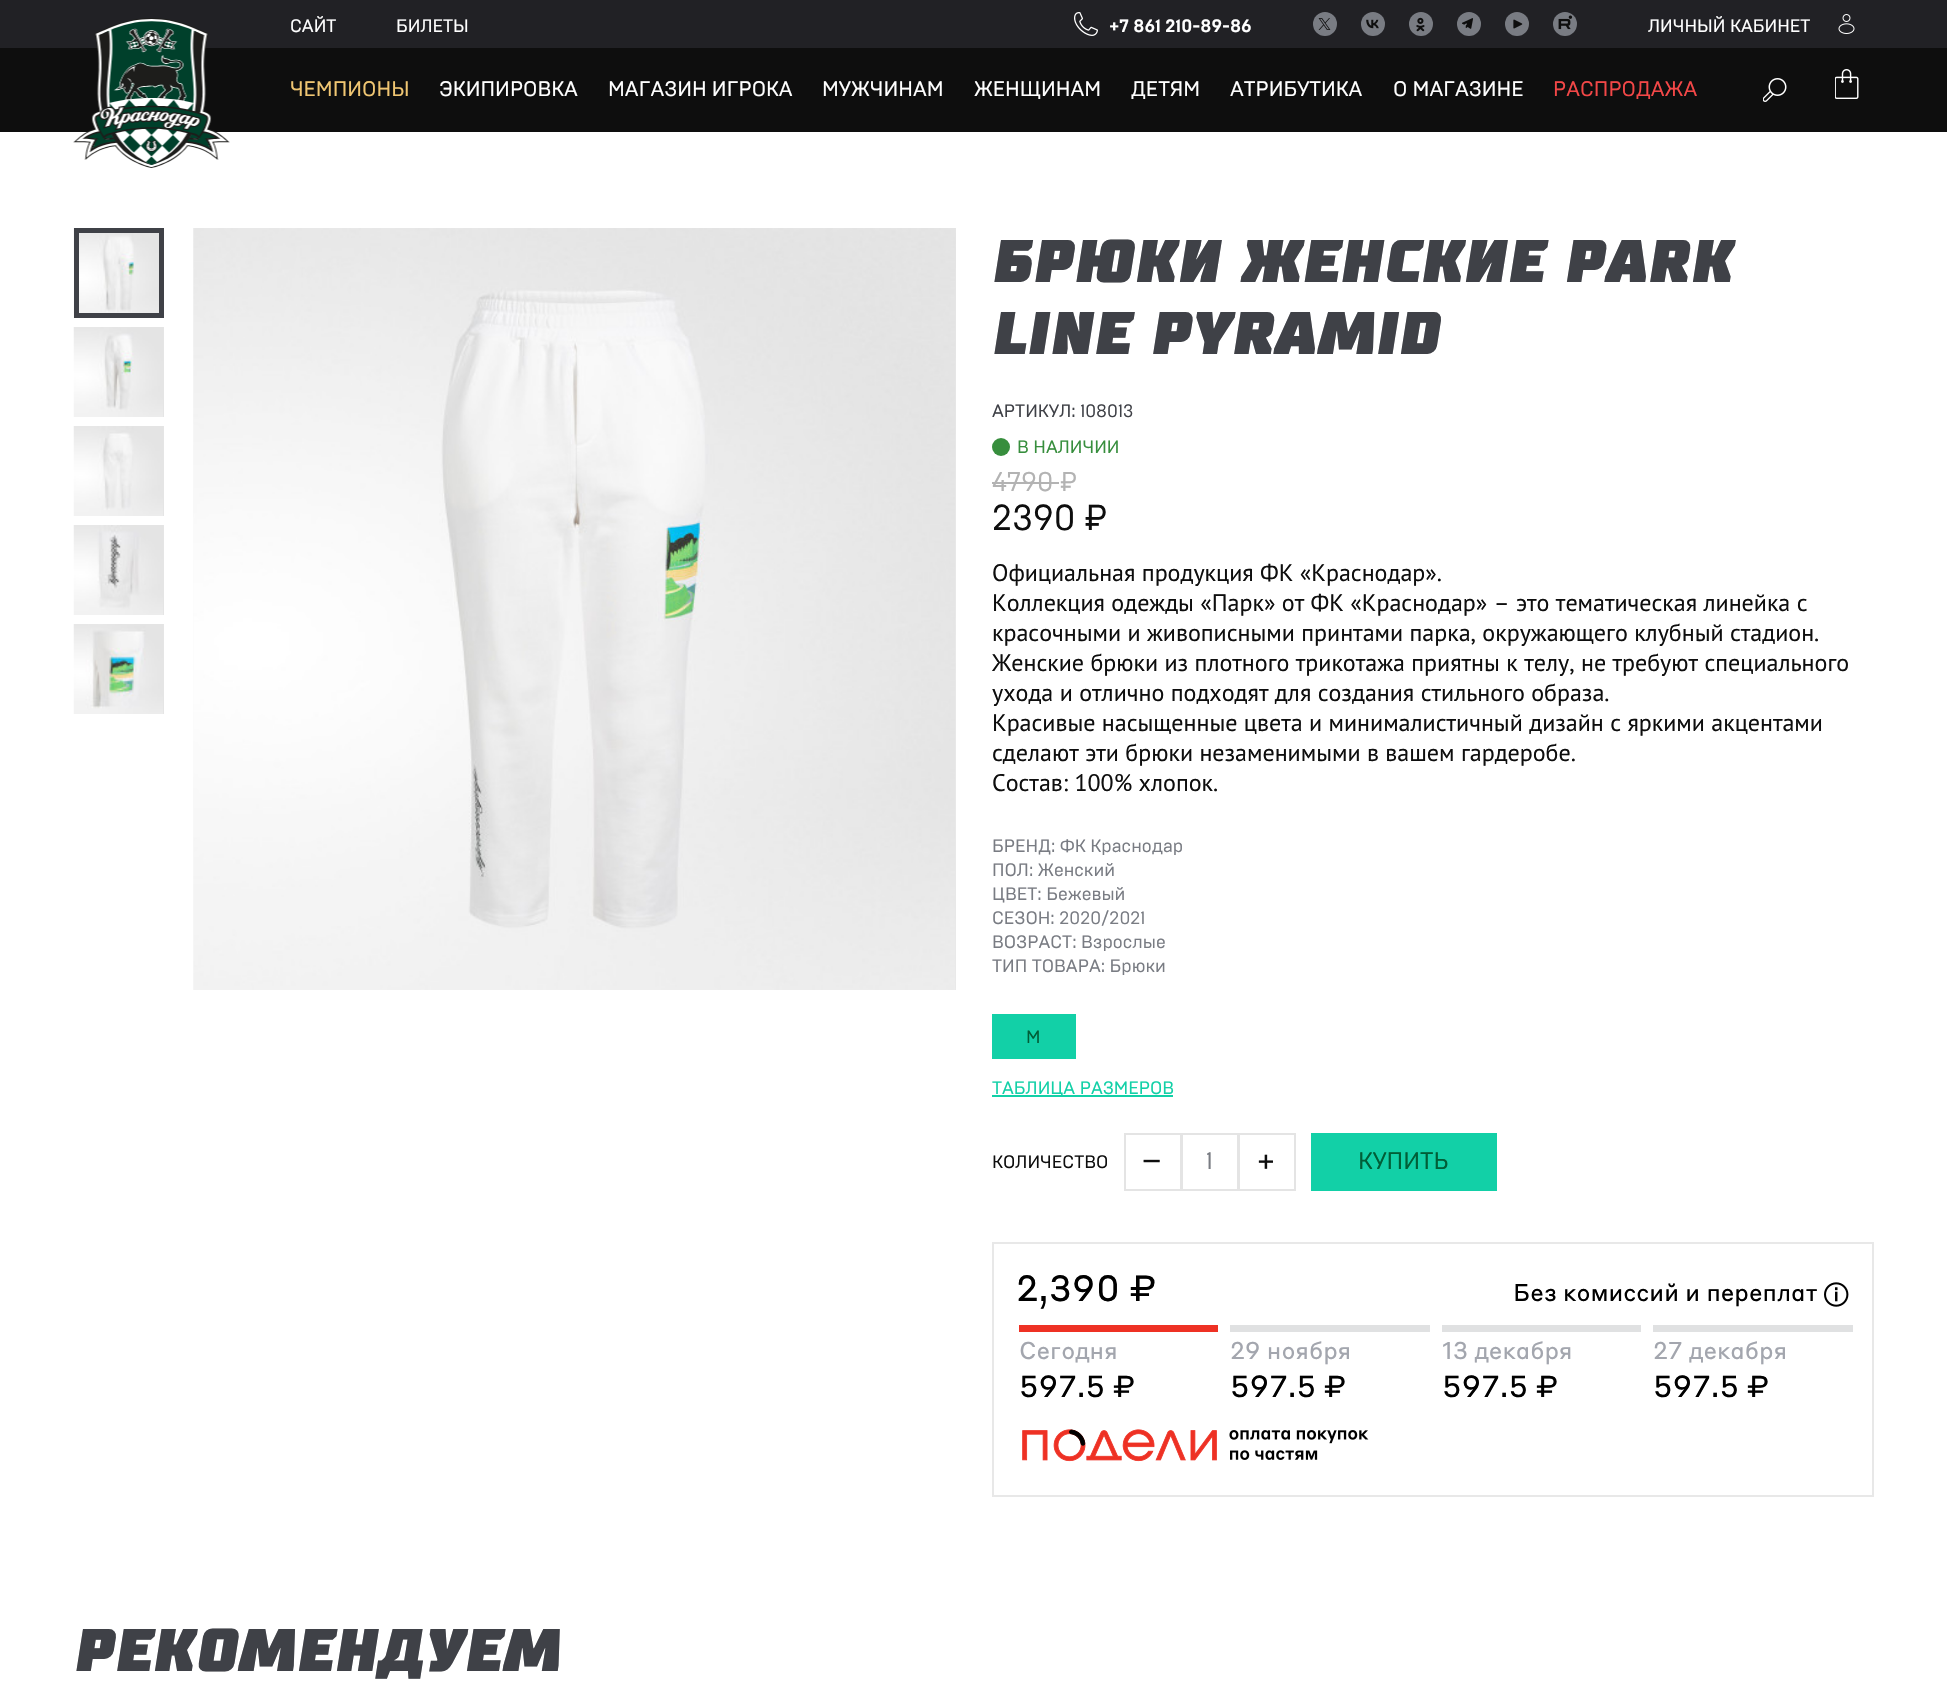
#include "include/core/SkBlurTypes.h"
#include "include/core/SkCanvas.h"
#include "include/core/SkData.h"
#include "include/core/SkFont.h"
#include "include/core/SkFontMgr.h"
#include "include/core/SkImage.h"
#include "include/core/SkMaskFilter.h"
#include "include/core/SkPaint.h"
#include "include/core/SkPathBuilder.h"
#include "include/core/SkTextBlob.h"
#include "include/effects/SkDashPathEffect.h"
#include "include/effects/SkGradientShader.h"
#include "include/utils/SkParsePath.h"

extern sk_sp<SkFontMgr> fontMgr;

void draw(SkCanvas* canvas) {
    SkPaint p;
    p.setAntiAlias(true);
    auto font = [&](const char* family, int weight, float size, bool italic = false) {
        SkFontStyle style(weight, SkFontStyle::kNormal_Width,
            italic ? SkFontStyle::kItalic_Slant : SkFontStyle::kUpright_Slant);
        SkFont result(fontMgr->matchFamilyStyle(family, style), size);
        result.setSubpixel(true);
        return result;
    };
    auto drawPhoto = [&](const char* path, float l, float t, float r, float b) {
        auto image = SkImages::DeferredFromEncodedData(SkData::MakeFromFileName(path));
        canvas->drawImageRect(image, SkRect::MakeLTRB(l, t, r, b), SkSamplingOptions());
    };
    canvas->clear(0xFF0E0E0E);
    p.setColor(0xFF212125);
    canvas->drawRect(SkRect::MakeLTRB(0, 0, 1947, 48), p);
    p.setColor(0xFFFFFFFF);
    canvas->drawRect(SkRect::MakeLTRB(0, 132, 1947, 1699), p);
    drawPhoto("media/1.png", 73, 18, 230, 168);
    auto font1 = font("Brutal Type", 400, 18);
    canvas->drawString("САЙТ", 290, 32, font1, p);
    canvas->drawString("БИЛЕТЫ", 396, 32, font1, p);
    drawPhoto("media/2.png", 1074, 12, 1098, 36);
    auto font2 = font("Brutal Type", 700, 18);
    canvas->drawString("+7 861 210-89-86", 1109, 32, font2, p);
    p.setColor(0xFF797C83);
    canvas->drawCircle(1325, 24, 12, p);
    drawPhoto("media/3.png", 1318, 18, 1331, 30);
    canvas->drawCircle(1373, 24, 12, p);
    drawPhoto("media/4.png", 1366, 19, 1379, 29);
    canvas->drawCircle(1421, 24, 12, p);
    drawPhoto("media/5.png", 1416, 17, 1425, 32);
    canvas->drawCircle(1469, 24, 12, p);
    drawPhoto("media/6.png", 1462, 18, 1473, 29);
    canvas->drawCircle(1517, 24, 12, p);
    drawPhoto("media/7.png", 1513, 19, 1523, 29);
    canvas->drawCircle(1565, 24, 12, p);
    drawPhoto("media/8.png", 1558, 15, 1573, 30);
    drawPhoto("media/9.png", 1838, 14, 1855, 34);
    p.setColor(0xFFFFFFFF);
    canvas->drawString("ЛИЧНЫЙ КАБИНЕТ", 1648, 32, font1, p);
    drawPhoto("media/10.png", 1763, 78, 1787, 102);
    drawPhoto("media/11.png", 1835, 69, 1859, 99);
    auto font3 = font("Brutal Type", 400, 21);
    p.setColor(0xFFF0C672);
    canvas->drawString("ЧЕМПИОНЫ", 290, 96, font3, p);
    p.setColor(0xFFFFFFFF);
    {
        const struct { const char* s; float x, y; } items[] = {
            {"ЭКИПИРОВКА", 439, 96},
            {"МАГАЗИН ИГРОКА", 608, 96},
            {"МУЖЧИНАМ", 822, 96},
            {"ЖЕНЩИНАМ", 974, 96},
            {"ДЕТЯМ", 1131, 96},
            {"АТРИБУТИКА", 1230, 96},
            {"О МАГАЗИНЕ", 1393, 96},
        };
        for (auto [s, x, y] : items) {
            canvas->drawString(s, x, y, font3, p);
        }
    }
    p.setColor(0xFFF34747);
    canvas->drawString("РАСПРОДАЖА", 1553, 96, font3, p);
    drawPhoto("media/12.png", 73, 228, 159, 318);
    p.setStyle(SkPaint::kStroke_Style);
    p.setStrokeWidth(5);
    p.setColor(0xFF3F4147);
    canvas->drawRect(SkRect::MakeLTRB(76.5f, 230.5f, 161.5f, 315.5f), p);
    p.setStyle(SkPaint::kFill_Style);
    p.setColor(0xFFE5E5E5);
    canvas->drawRect(SkRect::MakeLTRB(163, 327, 164, 417), p);
    drawPhoto("media/13.png", 73, 327, 163, 417);
    canvas->drawRect(SkRect::MakeLTRB(163, 426, 164, 516), p);
    drawPhoto("media/14.png", 73, 426, 163, 516);
    canvas->drawRect(SkRect::MakeLTRB(163, 525, 164, 615), p);
    drawPhoto("media/15.png", 73, 525, 163, 615);
    canvas->drawRect(SkRect::MakeLTRB(163, 624, 164, 714), p);
    drawPhoto("media/16.png", 73, 624, 163, 714);
    canvas->drawRect(SkRect::MakeLTRB(955, 228, 956, 990), p);
    drawPhoto("media/17.png", 193, 228, 956, 990);
    drawPhoto("media/18.png", 193, 228, 955, 990);
    auto font4 = font("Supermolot", 900, 60, true);
    p.setColor(0xFF3F4147);
    canvas->drawString("БРЮКИ ЖЕНСКИЕ PARK", 992, 282, font4, p);
    canvas->drawString("LINE PYRAMID", 992, 354, font4, p);
    canvas->drawString("АРТИКУЛ: 108013", 992, 417, font1, p);
    p.setColor(0xFF378E3D);
    canvas->drawCircle(1001, 447, 9, p);
    canvas->drawString("В НАЛИЧИИ", 1017, 453, font1, p);
    auto font5 = font("Brutal Type", 400, 27);
    p.setColor(0xFFB3B3B3);
    canvas->drawString("4790 ₽", 992, 491, font5, p);
    canvas->drawRect(SkRect::MakeLTRB(992, 482, 1059, 484), p);
    auto font6 = font("Brutal Type", 400, 36);
    p.setColor(0xFF0E0E0E);
    canvas->drawString("2390 ₽", 992, 530, font6, p);
    auto font7 = font("PT Sans", 400, 24);
    {
        const struct { const char* s; float x, y; } items[] = {
            {"Официальная продукция ФК «Краснодар».", 992, 581},
            {"Коллекция одежды «Парк» от ФК «Краснодар» – это тематическая линейка с", 992, 611},
            {"красочными и живописными принтами парка, окружающего клубный стадион.", 992, 641},
            {"Женские брюки из плотного трикотажа приятны к телу, не требуют специального", 992, 671},
            {"ухода и отлично подходят для создания стильного образа.", 992, 701},
            {"Красивые насыщенные цвета и минималистичный дизайн с яркими акцентами", 992, 731},
            {"сделают эти брюки незаменимыми в вашем гардеробе.", 992, 761},
            {"Состав: 100% хлопок.", 992, 791},
        };
        for (auto [s, x, y] : items) {
            canvas->drawString(s, x, y, font7, p);
        }
    }
    p.setColor(0xFF797C83);
    {
        const struct { const char* s; float x, y; } items[] = {
            {"БРЕНД: ФК Краснодар", 992, 852},
            {"ПОЛ: Женский", 992, 876},
            {"ЦВЕТ: Бежевый", 992, 900},
            {"СЕЗОН: 2020/2021", 992, 924},
            {"ВОЗРАСТ: Взрослые", 992, 948},
            {"ТИП ТОВАРА: Брюки", 992, 972},
        };
        for (auto [s, x, y] : items) {
            canvas->drawString(s, x, y, font1, p);
        }
    }
    p.setColor(0xFF12D0A7);
    canvas->drawRect(SkRect::MakeLTRB(992, 1014, 1076, 1059), p);
    p.setColor(0xFF005E37);
    canvas->drawString("M", 1026, 1043, font1, p);
    p.setColor(0xFF12D0A7);
    canvas->drawRect(SkRect::MakeLTRB(992, 1095, 1173, 1097), p);
    canvas->drawString("ТАБЛИЦА РАЗМЕРОВ", 992, 1094, font1, p);
    p.setColor(0xFF0E0E0E);
    canvas->drawString("КОЛИЧЕСТВО", 992, 1168, font1, p);
    p.setStyle(SkPaint::kStroke_Style);
    p.setStrokeWidth(2);
    p.setColor(0xFFE4E4E4);
    canvas->drawRect(SkRect::MakeLTRB(1125, 1134, 1181, 1190), p);
    auto font8 = font("Liberation Sans", 400, 33);
    p.setStyle(SkPaint::kFill_Style);
    p.setColor(0xFF0E0E0E);
    canvas->drawString("−", 1142, 1172, font8, p);
    p.setStyle(SkPaint::kStroke_Style);
    p.setColor(0xFFE4E4E4);
    canvas->drawRect(SkRect::MakeLTRB(1239, 1134, 1295, 1190), p);
    canvas->drawRect(SkRect::MakeLTRB(1182, 1134, 1238, 1190), p);
    auto font9 = font("Brutal Type", 400, 24);
    p.setStyle(SkPaint::kFill_Style);
    p.setColor(0xFF797C83);
    canvas->drawString("1", 1206, 1169, font9, p);
    auto font10 = font("Brutal Type", 400, 33);
    p.setColor(0xFF0E0E0E);
    canvas->drawString("+", 1257, 1172, font10, p);
    p.setColor(0xFF12D0A7);
    canvas->drawRect(SkRect::MakeLTRB(1311, 1133, 1497, 1191), p);
    p.setColor(0xFF005E37);
    canvas->drawString("КУПИТЬ", 1358, 1169, font9, p);
    p.setStyle(SkPaint::kStroke_Style);
    p.setColor(0xFFE8E8E8);
    canvas->drawRect(SkRect::MakeLTRB(993, 1243, 1873, 1496), p);
    auto font11 = font("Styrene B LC", 400, 36);
    p.setStyle(SkPaint::kFill_Style);
    p.setColor(0xFF000000);
    canvas->drawString("2,390 ₽", 1016, 1301, font11, p);
    auto font12 = font("Styrene B LC", 400, 24);
    canvas->drawString("Без комиссий и переплат", 1513, 1301, font12, p);
    drawPhoto("media/19.png", 1824, 1282, 1849, 1307);
    p.setColor(0xFFEE3124);
    canvas->drawRect(SkRect::MakeLTRB(1019, 1325, 1218, 1332), p);
    p.setColor(0xFFA3A6AE);
    canvas->drawString("Сегодня", 1019, 1359, font12, p);
    auto font13 = font("Styrene B LC", 400, 30);
    p.setColor(0xFF000000);
    canvas->drawString("597.5 ₽", 1019, 1397, font13, p);
    p.setColor(0xFFE0E1E2);
    canvas->drawRect(SkRect::MakeLTRB(1230, 1325, 1430, 1332), p);
    p.setColor(0xFFA3A6AE);
    canvas->drawString("29 ноября", 1230, 1359, font12, p);
    p.setColor(0xFF000000);
    canvas->drawString("597.5 ₽", 1230, 1397, font13, p);
    p.setColor(0xFFE0E1E2);
    canvas->drawRect(SkRect::MakeLTRB(1442, 1325, 1641, 1332), p);
    p.setColor(0xFFA3A6AE);
    canvas->drawString("13 декабря", 1442, 1359, font12, p);
    p.setColor(0xFF000000);
    canvas->drawString("597.5 ₽", 1442, 1397, font13, p);
    p.setColor(0xFFE0E1E2);
    canvas->drawRect(SkRect::MakeLTRB(1653, 1325, 1853, 1332), p);
    p.setColor(0xFFA3A6AE);
    canvas->drawString("27 декабря", 1653, 1359, font12, p);
    p.setColor(0xFF000000);
    canvas->drawString("597.5 ₽", 1653, 1397, font13, p);
    drawPhoto("media/20.png", 1022, 1429, 1369, 1462);
    p.setColor(0xFF3F4147);
    canvas->drawString("РЕКОМЕНДУЕМ", 74, 1671, font4, p);
}
